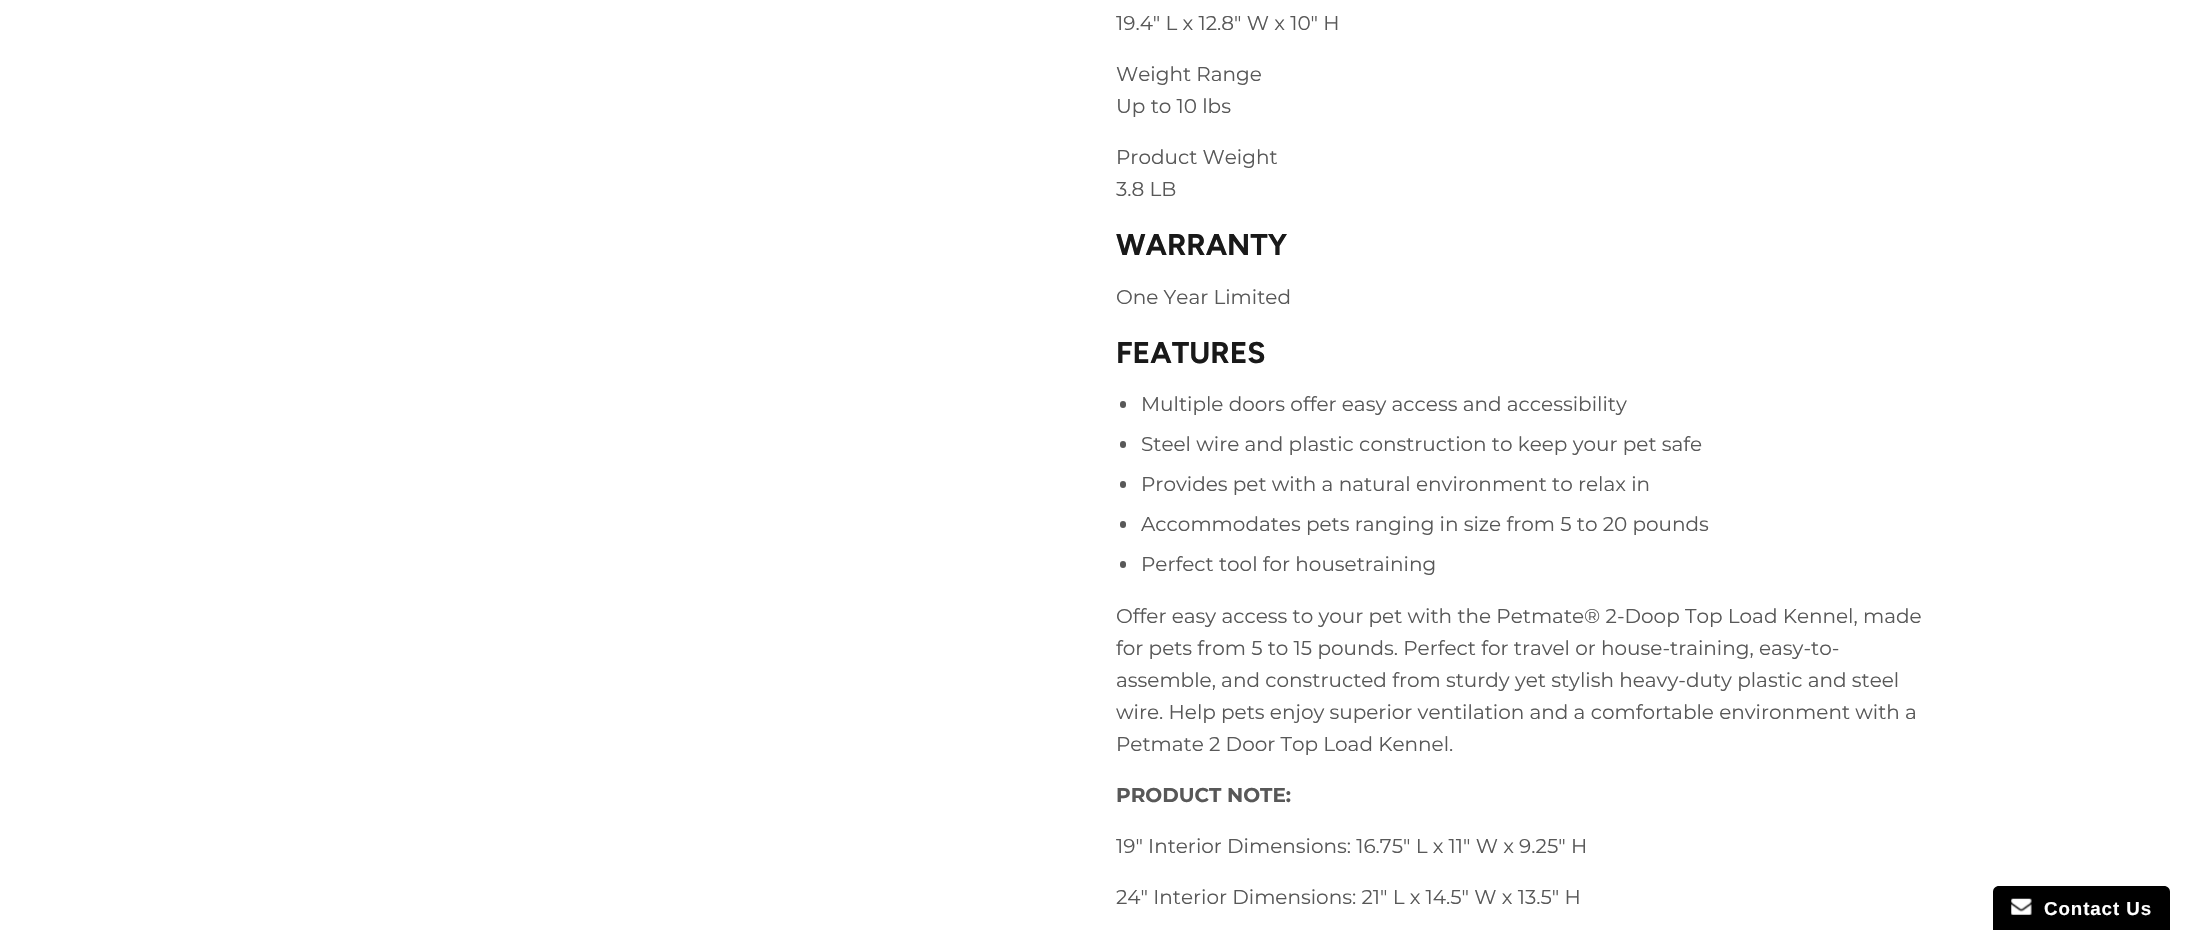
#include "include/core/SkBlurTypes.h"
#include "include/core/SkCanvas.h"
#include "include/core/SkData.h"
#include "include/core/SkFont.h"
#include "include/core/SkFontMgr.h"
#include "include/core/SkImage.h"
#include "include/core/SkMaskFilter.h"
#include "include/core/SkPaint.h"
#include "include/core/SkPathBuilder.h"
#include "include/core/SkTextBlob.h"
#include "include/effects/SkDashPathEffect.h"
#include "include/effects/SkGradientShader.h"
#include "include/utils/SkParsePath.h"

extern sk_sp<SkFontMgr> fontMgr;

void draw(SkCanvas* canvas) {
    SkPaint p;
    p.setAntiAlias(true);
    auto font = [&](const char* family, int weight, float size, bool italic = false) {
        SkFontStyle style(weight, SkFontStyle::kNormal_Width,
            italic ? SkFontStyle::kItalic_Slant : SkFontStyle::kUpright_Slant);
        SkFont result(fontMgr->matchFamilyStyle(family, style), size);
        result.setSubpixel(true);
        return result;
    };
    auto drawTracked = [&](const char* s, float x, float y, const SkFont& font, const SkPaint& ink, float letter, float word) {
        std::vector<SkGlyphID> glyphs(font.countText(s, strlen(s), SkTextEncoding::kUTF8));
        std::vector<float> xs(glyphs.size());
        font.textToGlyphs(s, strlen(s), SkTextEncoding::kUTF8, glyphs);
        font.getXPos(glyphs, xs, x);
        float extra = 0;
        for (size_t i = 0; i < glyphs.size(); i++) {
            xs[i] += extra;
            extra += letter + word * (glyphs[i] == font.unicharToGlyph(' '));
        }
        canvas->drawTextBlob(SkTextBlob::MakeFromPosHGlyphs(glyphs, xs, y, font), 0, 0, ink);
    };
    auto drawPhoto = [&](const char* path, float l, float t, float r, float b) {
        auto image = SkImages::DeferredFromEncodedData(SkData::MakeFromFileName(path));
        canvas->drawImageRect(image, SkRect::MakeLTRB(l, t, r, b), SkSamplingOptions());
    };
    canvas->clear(0xFFFFFFFF);
    auto font1 = font("Montserrat", 400, 20);
    p.setColor(0xFF585858);
    {
        const struct { const char* s; float x, y; } items[] = {
            {"19.4\" L x 12.8\" W x 10\" H", 1116, 30},
            {"Weight Range", 1116, 81},
            {"Up to 10 lbs", 1116, 113},
            {"Product Weight", 1116, 164},
            {"3.8 LB", 1116, 196},
        };
        for (auto [s, x, y] : items) {
            canvas->drawString(s, x, y, font1, p);
        }
    }
    auto font2 = font("Figtree", 700, 30);
    p.setColor(0xFF191919);
    canvas->drawString("WARRANTY", 1116, 255, font2, p);
    p.setColor(0xFF585858);
    canvas->drawString("One Year Limited", 1116, 304, font1, p);
    p.setColor(0xFF191919);
    canvas->drawString("FEATURES", 1116, 363, font2, p);
    p.setColor(0xFF585858);
    canvas->drawRoundRect(SkRect::MakeLTRB(1120, 401, 1126, 408), 3, 3, p);
    canvas->drawString("Multiple doors offer easy access and accessibility", 1141, 411, font1, p);
    canvas->drawRoundRect(SkRect::MakeLTRB(1120, 441, 1126, 448), 3, 3, p);
    canvas->drawString("Steel wire and plastic construction to keep your pet safe", 1141, 451, font1, p);
    canvas->drawRoundRect(SkRect::MakeLTRB(1120, 481, 1126, 488), 3, 3, p);
    canvas->drawString("Provides pet with a natural environment to relax in", 1141, 491, font1, p);
    canvas->drawRoundRect(SkRect::MakeLTRB(1120, 521, 1126, 528), 3, 3, p);
    canvas->drawString("Accommodates pets ranging in size from 5 to 20 pounds", 1141, 531, font1, p);
    canvas->drawRoundRect(SkRect::MakeLTRB(1120, 561, 1126, 568), 3, 3, p);
    {
        const struct { const char* s; float x, y; } items[] = {
            {"Perfect tool for housetraining", 1141, 571},
            {"Offer easy access to your pet with the Petmate® 2-Doop Top Load Kennel, made", 1116, 623},
            {"for pets from 5 to 15 pounds. Perfect for travel or house-training, easy-to-", 1116, 655},
            {"assemble, and constructed from sturdy yet stylish heavy-duty plastic and steel", 1116, 687},
            {"wire. Help pets enjoy superior ventilation and a comfortable environment with a", 1116, 719},
            {"Petmate 2 Door Top Load Kennel.", 1116, 751},
        };
        for (auto [s, x, y] : items) {
            canvas->drawString(s, x, y, font1, p);
        }
    }
    auto font3 = font("Montserrat", 700, 20);
    canvas->drawString("PRODUCT NOTE:", 1116, 802, font3, p);
    canvas->drawString("19\" Interior Dimensions: 16.75\" L x 11\" W x 9.25\" H", 1116, 853, font1, p);
    canvas->drawString("24\" Interior Dimensions: 21\" L x 14.5\" W x 13.5\" H", 1116, 904, font1, p);
    p.setColor(0xFF000000);
    canvas->drawPath(SkPathBuilder().moveTo(1999, 886).lineTo(2164, 886).cubicTo(2167.5f, 886, 2170, 888.5f, 2170, 892).lineTo(2170, 930).lineTo(1993, 930).lineTo(1993, 892).cubicTo(1993, 888.5f, 1995.5f, 886, 1999, 886).close().detach(), p);
    drawPhoto("media/1.png", 2011, 898, 2032, 915);
    auto font4 = font("Liberation Sans", 700, 18.75f);
    p.setColor(0xFFFFFFFF);
    drawTracked("Contact Us", 2044, 915, font4, p, 0.9f, 0);
}
